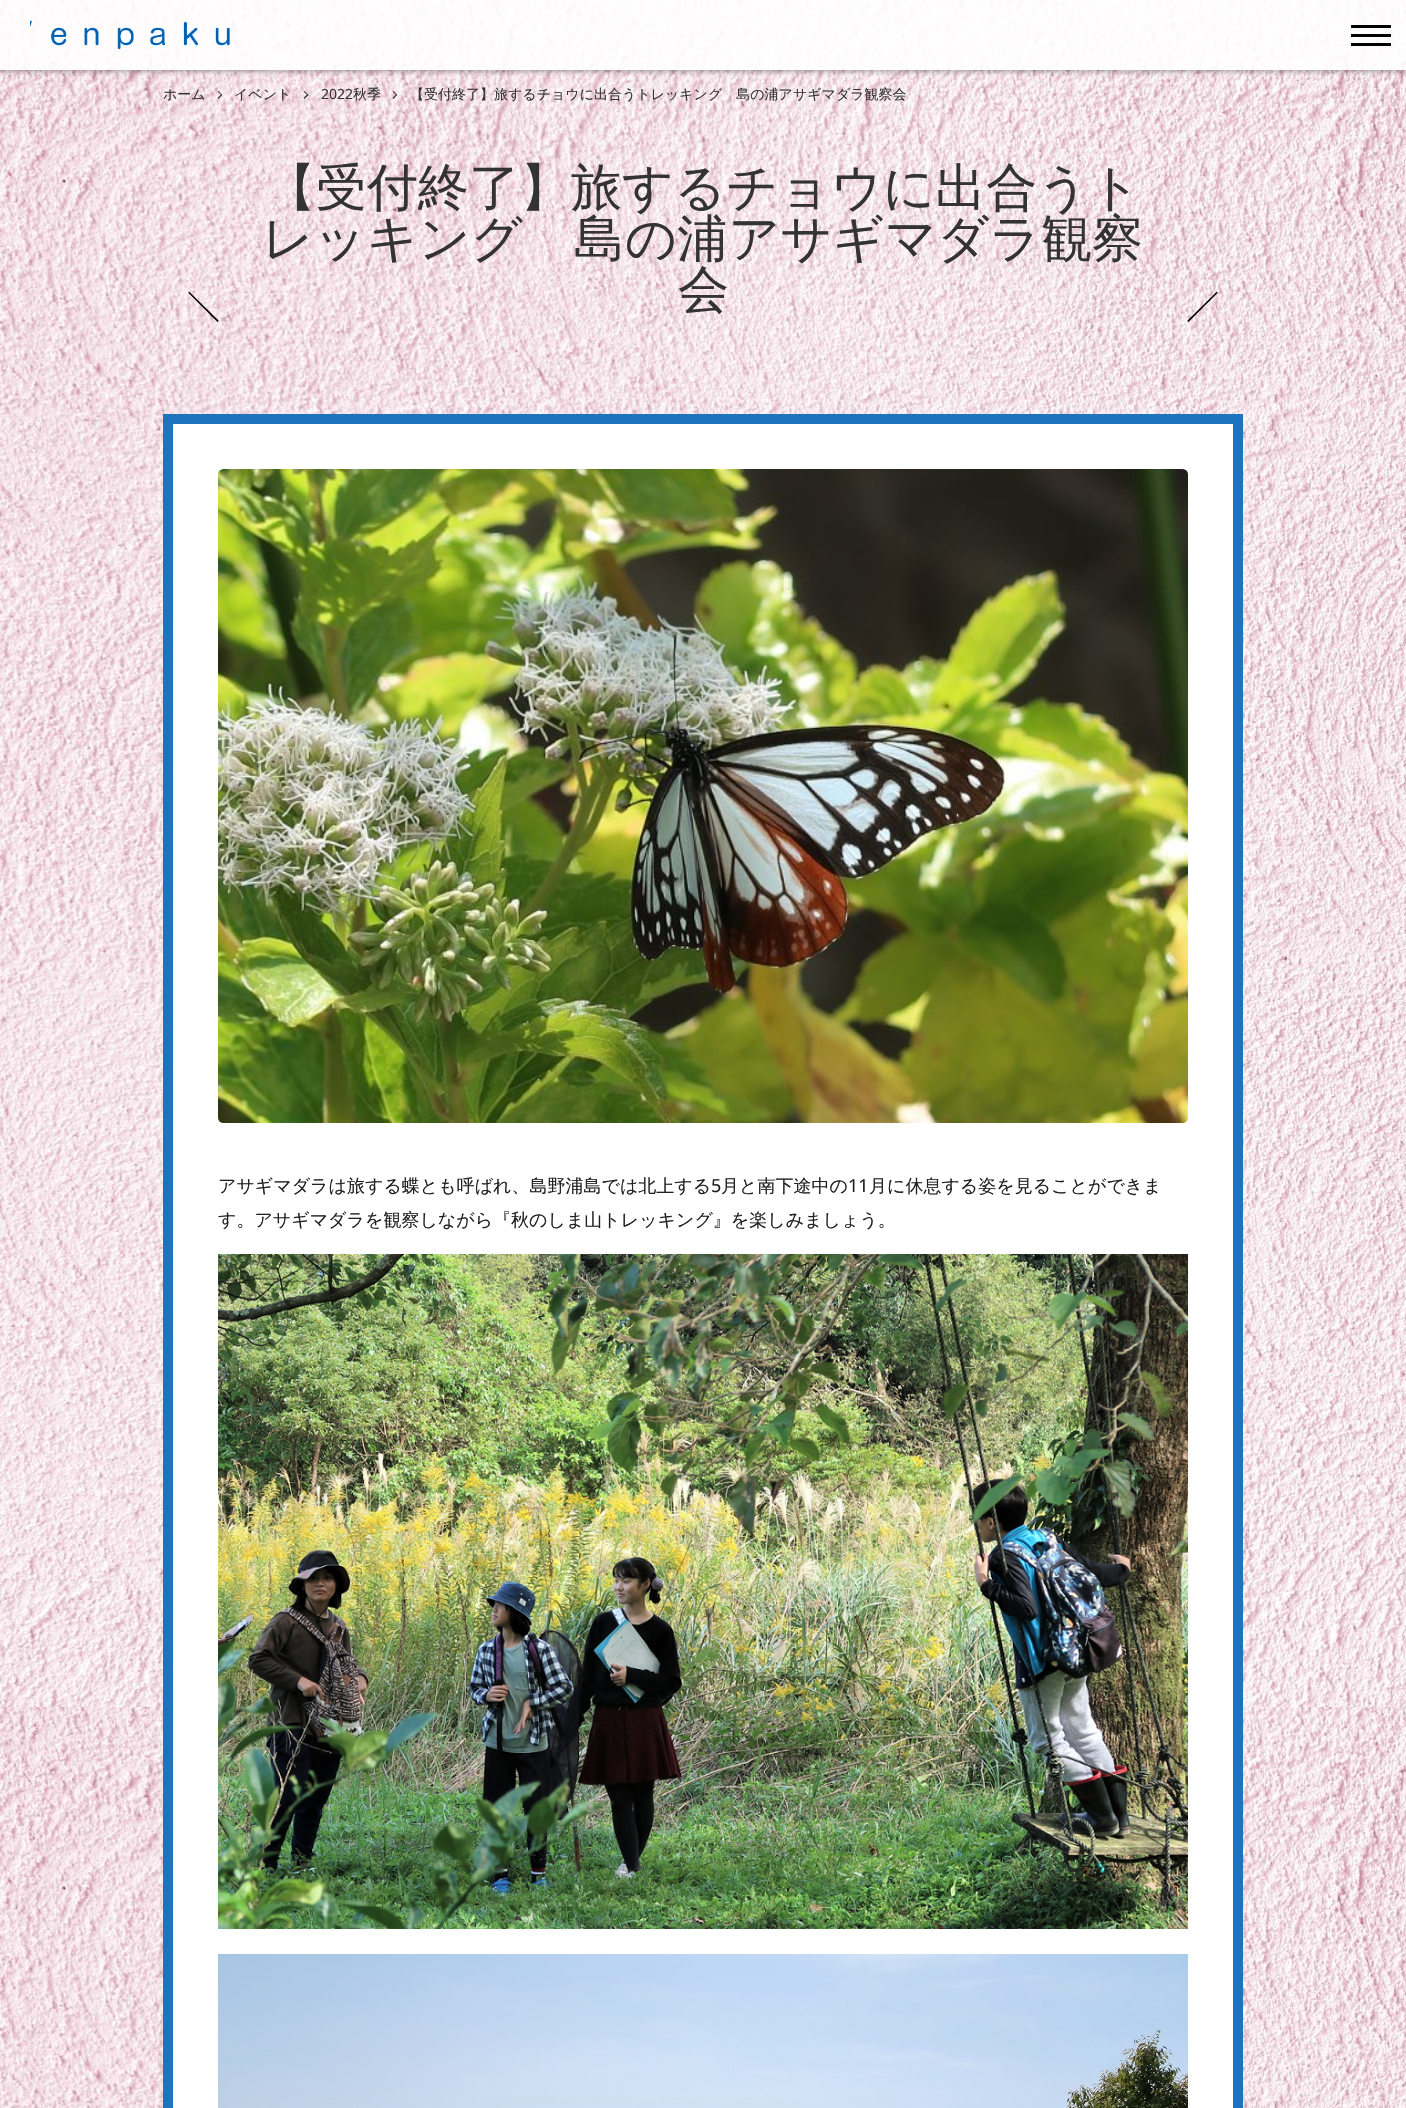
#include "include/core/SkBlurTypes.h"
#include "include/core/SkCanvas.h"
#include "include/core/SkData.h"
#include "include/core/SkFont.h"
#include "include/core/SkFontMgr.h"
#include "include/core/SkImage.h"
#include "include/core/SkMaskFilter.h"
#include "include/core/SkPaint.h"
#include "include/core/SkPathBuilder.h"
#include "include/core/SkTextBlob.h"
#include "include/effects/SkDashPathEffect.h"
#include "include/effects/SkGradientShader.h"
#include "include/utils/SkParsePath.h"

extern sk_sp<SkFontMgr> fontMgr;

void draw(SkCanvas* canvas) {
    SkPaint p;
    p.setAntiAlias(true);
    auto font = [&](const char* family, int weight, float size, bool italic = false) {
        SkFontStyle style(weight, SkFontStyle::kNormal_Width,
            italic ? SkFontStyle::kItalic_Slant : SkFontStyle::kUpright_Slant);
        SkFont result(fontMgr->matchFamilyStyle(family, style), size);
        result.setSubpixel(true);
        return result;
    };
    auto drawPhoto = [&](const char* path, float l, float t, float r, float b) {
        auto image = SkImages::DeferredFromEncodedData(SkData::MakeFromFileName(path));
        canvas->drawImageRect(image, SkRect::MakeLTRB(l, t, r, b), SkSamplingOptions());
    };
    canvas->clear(0xFFFFFFFF);
    drawPhoto("media/1.png", 0, 0, 1406, 2108);
    canvas->save();
    canvas->clipRect(SkRect::MakeLTRB(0, 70, 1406, 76));
    p.setColor(0x4D000000);
    p.setMaskFilter(SkMaskFilter::MakeBlur(kNormal_SkBlurStyle, 2.5f));
    canvas->drawRect(SkRect::MakeLTRB(0, 2, 1406, 72), p);
    p.setMaskFilter(nullptr);
    canvas->restore();
    p.setColor(0xE6FFFFFF);
    canvas->drawRect(SkRect::MakeLTRB(0, 0, 1406, 70), p);
    drawPhoto("media/2.png", 30, 20, 230, 49);
    {
        const struct { float l, t, r, b; SkColor color; } items[] = {
            {1351, 34, 1391, 37, 0xFF000000},
            {1351, 25, 1391, 28, 0xFF000000},
            {1351, 43, 1391, 46, 0xFF000000},
        };
        for (auto [l, t, r, b, color] : items) {
            p.setColor(color);
            canvas->drawRect(SkRect::MakeLTRB(l, t, r, b), p);
        }
    }
    auto font1 = font("WenQuanYi Zen Hei", 500, 14);
    p.setColor(0xFF333333);
    canvas->drawString("ホーム", 163, 99, font1, p);
    canvas->drawPath(SkPathBuilder().moveTo(218.5f, 91).lineTo(222, 95).lineTo(221.5f, 95.5f).lineTo(217.5f, 91.5f).close().detach(), p);
    canvas->drawPath(SkPathBuilder().moveTo(221.5f, 94).lineTo(222, 95).lineTo(218.5f, 99).lineTo(217.5f, 98).close().detach(), p);
    canvas->drawString("イベント", 234, 99, font1, p);
    canvas->drawPath(SkPathBuilder().moveTo(304.5f, 91).lineTo(308.5f, 95).lineTo(307.5f, 95.5f).lineTo(303.5f, 91.5f).close().detach(), p);
    canvas->drawPath(SkPathBuilder().moveTo(307.5f, 94).lineTo(308.5f, 95).lineTo(304.5f, 99).lineTo(303.5f, 98).close().detach(), p);
    auto font2 = font("Noto Sans", 400, 14);
    canvas->drawString("2022", 321, 99, font2, p);
    canvas->drawString("秋季", 353, 99, font1, p);
    canvas->drawPath(SkPathBuilder().moveTo(393.5f, 91).lineTo(397, 95).lineTo(396.5f, 95.5f).lineTo(392.5f, 91.5f).close().detach(), p);
    canvas->drawPath(SkPathBuilder().moveTo(396.5f, 94).lineTo(397, 95).lineTo(393.5f, 99).lineTo(392.5f, 98).close().detach(), p);
    canvas->drawString("【受付終了】旅するチョウに出合うトレッキング　島の浦アサギマダラ観察会", 410, 99, font1, p);
    auto font3 = font("WenQuanYi Zen Hei", 500, 51);
    canvas->drawString("【受付終了】旅するチョウに出合うト", 265, 205, font3, p);
    canvas->drawString("レッキング　島の浦アサギマダラ観察", 262, 256, font3, p);
    p.setColor(0xFF000000);
    canvas->drawPath(SkPathBuilder().moveTo(188.5f, 292).cubicTo(189, 291.5f, 189.5f, 291.5f, 189.5f, 292).lineTo(218.5f, 320.5f).cubicTo(218.5f, 321, 218.5f, 321.5f, 218.5f, 321.5f).cubicTo(218, 322, 217.5f, 322, 217, 321.5f).lineTo(188.5f, 293).cubicTo(188.5f, 292.5f, 188.5f, 292, 188.5f, 292).close().detach(), p);
    p.setColor(0xFF333333);
    canvas->drawString("会", 678, 307, font3, p);
    p.setColor(0xFF000000);
    canvas->drawPath(SkPathBuilder().moveTo(1217.5f, 292).cubicTo(1217.5f, 292, 1217.5f, 292.5f, 1217.5f, 293).lineTo(1189, 321.5f).cubicTo(1188.5f, 322, 1188, 322, 1187.5f, 321.5f).cubicTo(1187.5f, 321.5f, 1187.5f, 321, 1187.5f, 320.5f).lineTo(1216.5f, 292).cubicTo(1216.5f, 291.5f, 1217, 291.5f, 1217.5f, 292).close().detach(), p);
    p.setColor(0xFFFFFFFF);
    canvas->drawRect(SkRect::MakeLTRB(168, 419, 1238, 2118), p);
    p.setStyle(SkPaint::kStroke_Style);
    p.setStrokeWidth(10);
    p.setColor(0xFF1E73BE);
    canvas->drawRect(SkRect::MakeLTRB(168, 419, 1238, 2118), p);
    drawPhoto("media/3.png", 218, 469, 1188, 1123);
    auto font4 = font("WenQuanYi Zen Hei", 500, 18);
    p.setStyle(SkPaint::kFill_Style);
    p.setColor(0xFF212121);
    canvas->drawString("アサギマダラは旅する蝶とも呼ばれ、島野浦島では北上する", 218, 1192, font4, p);
    auto font5 = font("Noto Sans", 400, 18);
    canvas->drawString("5", 711, 1192, font5, p);
    canvas->drawString("月と南下途中の", 721, 1192, font4, p);
    canvas->drawString("11", 848, 1192, font5, p);
    canvas->drawString("月に休息する姿を見ることができま", 869, 1192, font4, p);
    canvas->drawString("す。アサギマダラを観察しながら『秋のしま山トレッキング』を楽しみましょう。", 218, 1226, font4, p);
    drawPhoto("media/4.png", 218, 1254, 1188, 1929);
    drawPhoto("media/5.png", 218, 1954, 1188, 2108);
}
